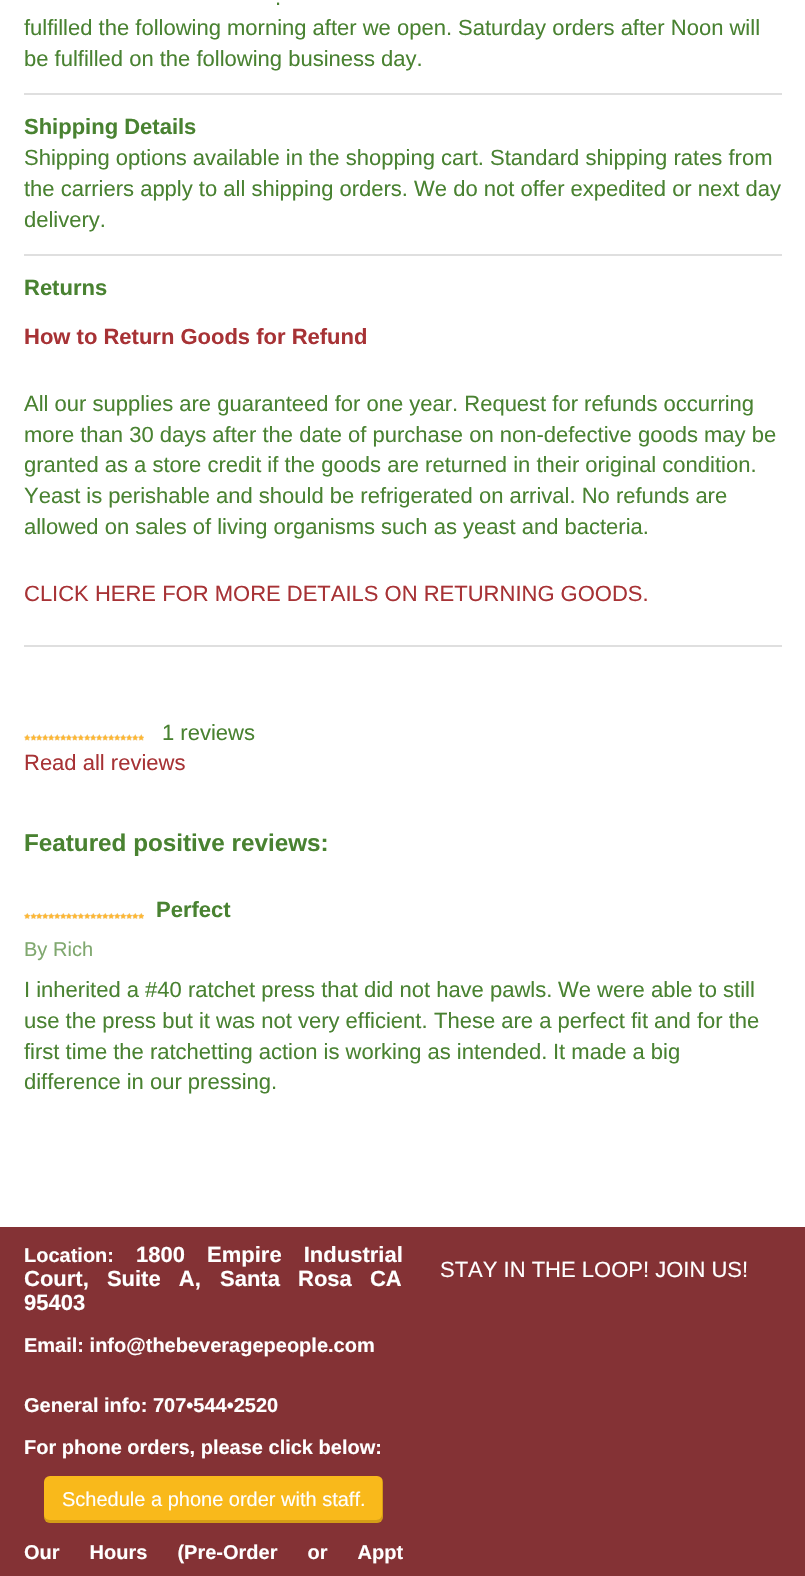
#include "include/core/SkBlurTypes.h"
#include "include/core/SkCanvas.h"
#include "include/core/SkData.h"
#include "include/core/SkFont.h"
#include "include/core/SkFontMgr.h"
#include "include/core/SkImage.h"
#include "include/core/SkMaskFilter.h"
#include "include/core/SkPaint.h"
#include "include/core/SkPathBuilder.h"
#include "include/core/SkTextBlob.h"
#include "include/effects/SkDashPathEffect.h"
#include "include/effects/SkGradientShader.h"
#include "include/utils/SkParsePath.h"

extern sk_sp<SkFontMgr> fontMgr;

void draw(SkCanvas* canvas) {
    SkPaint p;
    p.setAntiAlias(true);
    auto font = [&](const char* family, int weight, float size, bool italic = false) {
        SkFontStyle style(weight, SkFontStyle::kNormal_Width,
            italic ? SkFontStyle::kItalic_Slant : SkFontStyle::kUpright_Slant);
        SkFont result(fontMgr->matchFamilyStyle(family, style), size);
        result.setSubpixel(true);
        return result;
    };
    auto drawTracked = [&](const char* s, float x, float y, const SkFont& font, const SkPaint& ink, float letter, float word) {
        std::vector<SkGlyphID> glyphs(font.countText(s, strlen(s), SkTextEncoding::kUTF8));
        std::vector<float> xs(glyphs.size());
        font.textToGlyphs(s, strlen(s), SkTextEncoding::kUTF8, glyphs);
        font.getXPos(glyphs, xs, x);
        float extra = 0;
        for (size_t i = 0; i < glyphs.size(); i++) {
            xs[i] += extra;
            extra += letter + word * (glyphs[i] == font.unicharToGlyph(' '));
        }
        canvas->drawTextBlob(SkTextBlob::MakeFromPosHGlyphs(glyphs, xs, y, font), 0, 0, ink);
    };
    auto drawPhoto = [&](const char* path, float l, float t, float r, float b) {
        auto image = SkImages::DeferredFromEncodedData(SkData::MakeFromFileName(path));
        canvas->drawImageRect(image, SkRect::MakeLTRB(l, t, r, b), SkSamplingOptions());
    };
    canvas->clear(0xFFFFFFFF);
    auto font1 = font("Liberation Sans", 400, 22);
    p.setColor(0xFF498231);
    {
        const struct { const char* s; float x, y; } items[] = {
            {".", 275, 5},
            {"fulfilled the following morning after we open.", 24, 35},
            {"Saturday orders after Noon will", 458, 35},
            {"be fulfilled on the following business day.", 24, 66},
        };
        for (auto [s, x, y] : items) {
            canvas->drawString(s, x, y, font1, p);
        }
    }
    p.setColor(0xFFDFDFDF);
    canvas->drawRect(SkRect::MakeLTRB(24, 93, 782, 95), p);
    auto font2 = font("Liberation Sans", 700, 22);
    p.setColor(0xFF498231);
    canvas->drawString("Shipping Details", 24, 134, font2, p);
    {
        const struct { const char* s; float x, y; } items[] = {
            {"Shipping options available in the shopping cart. Standard shipping rates from", 24, 165},
            {"the carriers apply to all shipping orders. We do not offer expedited or next day", 24, 196},
            {"delivery.", 24, 227},
        };
        for (auto [s, x, y] : items) {
            canvas->drawString(s, x, y, font1, p);
        }
    }
    p.setColor(0xFFDFDFDF);
    canvas->drawRect(SkRect::MakeLTRB(24, 254, 782, 256), p);
    p.setColor(0xFF498231);
    canvas->drawString("Returns", 24, 295, font2, p);
    p.setColor(0xFFA73235);
    canvas->drawString("How to Return Goods for Refund", 24, 344, font2, p);
    p.setColor(0xFF498231);
    {
        const struct { const char* s; float x, y; } items[] = {
            {"All our supplies are guaranteed for one year. Request for refunds occurring", 24, 411},
            {"more than 30 days after the date of purchase on non-defective goods may be", 24, 442},
            {"granted as a store credit if the goods are returned in their original condition.", 24, 472},
            {"Yeast is perishable and should be refrigerated on arrival. No refunds are", 24, 503},
            {"allowed on sales of living organisms such as yeast and bacteria.", 24, 534},
        };
        for (auto [s, x, y] : items) {
            canvas->drawString(s, x, y, font1, p);
        }
    }
    p.setColor(0xFFA73235);
    canvas->drawString("CLICK HERE FOR MORE DETAILS ON RETURNING GOODS.", 24, 601, font1, p);
    p.setColor(0xFFDFDFDF);
    canvas->drawRect(SkRect::MakeLTRB(24, 645, 782, 647), p);
    drawPhoto("media/1.png", 24, 734, 144, 741);
    drawPhoto("media/2.png", 24, 734, 144, 741);
    p.setColor(0xFF498231);
    canvas->drawString("1 reviews", 162, 740, font1, p);
    p.setColor(0xFFA73235);
    canvas->drawString("Read all reviews", 24, 770, font1, p);
    auto font3 = font("Liberation Sans", 700, 24.25f);
    p.setColor(0xFF498231);
    canvas->drawString("Featured positive reviews:", 24, 851, font3, p);
    drawPhoto("media/3.png", 24, 913, 144, 919);
    drawPhoto("media/4.png", 24, 913, 144, 919);
    canvas->drawString("Perfect", 156, 917, font2, p);
    auto font4 = font("Liberation Sans", 400, 20);
    p.setColor(0xFF80A86F);
    canvas->drawString("By", 24, 956, font4, p);
    canvas->drawString("Rich", 53, 956, font4, p);
    p.setColor(0xFF498231);
    {
        const struct { const char* s; float x, y; } items[] = {
            {"I inherited a #40 ratchet press that did not have pawls.", 24, 997},
            {"We were able to still", 558, 997},
            {"use the press but it was not very efficient.", 24, 1028},
            {"These are a perfect fit and for the", 434, 1028},
            {"first time the ratchetting action is working as intended.", 24, 1059},
            {"It made a big", 553, 1059},
            {"difference in our pressing.", 24, 1089},
        };
        for (auto [s, x, y] : items) {
            canvas->drawString(s, x, y, font1, p);
        }
    }
    p.setColor(0xFF843235);
    canvas->drawRect(SkRect::MakeLTRB(0, 1227, 805, 1576), p);
    auto font5 = font("Liberation Sans", 700, 20);
    p.setColor(0xFFFFFFFF);
    canvas->drawString("Location:", 24, 1262, font5, p);
    drawTracked("1800 Empire Industrial", 136, 1262, font2, p, 0, 16);
    drawTracked("Court, Suite A,", 24, 1286, font2, p, 0, 12);
    drawTracked("Santa Rosa CA", 220, 1286, font2, p, 0, 12);
    canvas->drawString("95403", 24, 1310, font2, p);
    {
        const struct { const char* s; float x, y; } items[] = {
            {"Email: info@thebeveragepeople.com", 24, 1352},
            {"General info: 707•544•2520", 24, 1412},
            {"For phone orders, please click below:", 24, 1454},
        };
        for (auto [s, x, y] : items) {
            canvas->drawString(s, x, y, font5, p);
        }
    }
    p.setColor(0xFFF9B91B);
    canvas->drawRoundRect(SkRect::MakeLTRB(44, 1476, 383, 1523), 6, 6, p);
    p.setColor(0x26000000);
    canvas->drawPath(SkPathBuilder().moveTo(44, 1514).lineTo(44, 1517).cubicTo(44, 1520, 47, 1523, 50, 1523).lineTo(377, 1523).cubicTo(380, 1523, 383, 1520, 383, 1517).lineTo(383, 1482).cubicTo(383, 1481, 383, 1480, 382, 1479).lineTo(382, 1514).cubicTo(382, 1517, 380, 1520, 376, 1520).lineTo(50, 1520).cubicTo(46, 1520, 44, 1517, 44, 1514).close().detach(), p);
    p.setColor(0xFFFFFFFF);
    canvas->drawString("Schedule a phone order with staff.", 62, 1506, font4, p);
    drawTracked("Our Hours (Pre-Order or Appt", 24, 1559, font5, p, 0, 24.5f);
    canvas->drawString("STAY IN THE LOOP! JOIN US!", 440, 1277, font1, p);
}
